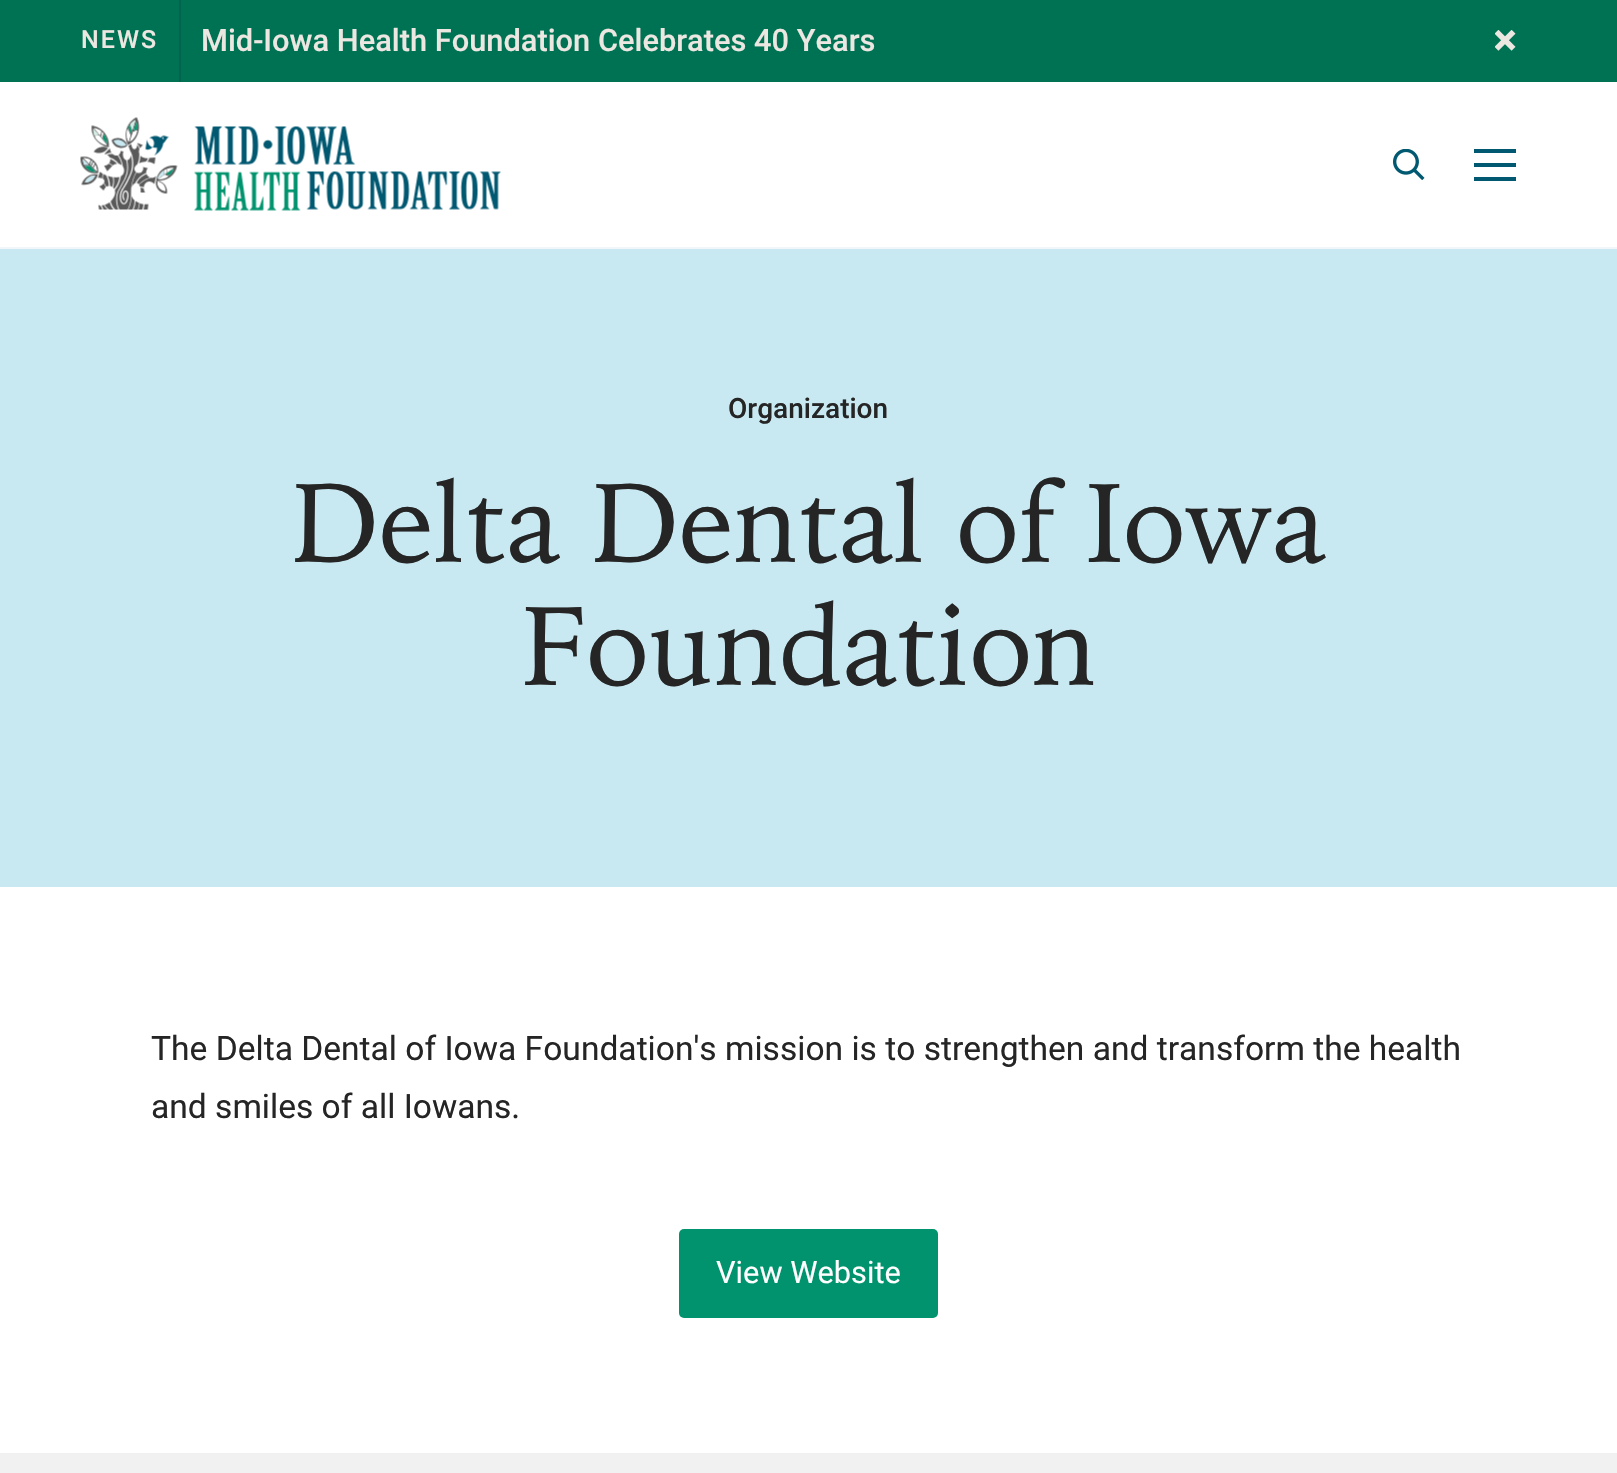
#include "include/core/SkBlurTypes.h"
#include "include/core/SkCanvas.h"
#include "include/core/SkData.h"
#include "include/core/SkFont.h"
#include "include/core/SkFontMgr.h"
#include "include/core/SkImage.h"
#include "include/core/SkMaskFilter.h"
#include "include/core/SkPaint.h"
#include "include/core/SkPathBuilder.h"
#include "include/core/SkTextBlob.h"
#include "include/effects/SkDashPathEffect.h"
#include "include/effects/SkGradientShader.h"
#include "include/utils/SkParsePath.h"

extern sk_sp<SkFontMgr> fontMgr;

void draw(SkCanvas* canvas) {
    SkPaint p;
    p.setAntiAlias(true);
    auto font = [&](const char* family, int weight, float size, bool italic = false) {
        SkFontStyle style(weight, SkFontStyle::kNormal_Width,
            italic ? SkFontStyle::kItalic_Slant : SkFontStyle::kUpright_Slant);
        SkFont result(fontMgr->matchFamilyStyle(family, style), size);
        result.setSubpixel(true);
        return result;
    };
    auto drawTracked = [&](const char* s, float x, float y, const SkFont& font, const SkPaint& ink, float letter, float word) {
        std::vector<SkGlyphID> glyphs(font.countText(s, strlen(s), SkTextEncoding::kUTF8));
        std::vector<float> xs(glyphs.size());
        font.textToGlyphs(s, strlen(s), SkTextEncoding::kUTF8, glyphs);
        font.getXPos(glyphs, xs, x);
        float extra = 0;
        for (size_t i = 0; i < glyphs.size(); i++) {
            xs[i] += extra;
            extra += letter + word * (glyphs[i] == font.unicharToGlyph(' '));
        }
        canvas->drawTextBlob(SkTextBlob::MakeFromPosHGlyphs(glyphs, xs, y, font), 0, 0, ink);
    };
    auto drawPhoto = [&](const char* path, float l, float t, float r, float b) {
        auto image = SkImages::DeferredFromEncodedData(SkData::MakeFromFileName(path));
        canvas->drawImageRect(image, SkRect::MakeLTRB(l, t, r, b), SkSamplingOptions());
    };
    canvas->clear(0xFFFFFFFF);
    p.setColor(0xFFF0F6FA);
    canvas->drawRect(SkRect::MakeLTRB(0, 247, 1617, 249), p);
    p.setColor(0xFF007254);
    canvas->drawRect(SkRect::MakeLTRB(0, 0, 1617, 82), p);
    auto font1 = font("Roboto", 500, 25);
    p.setColor(0xFFEDE7E2);
    drawTracked("NEWS", 81, 48, font1, p, 2, 0);
    p.setColor(0xFF02634E);
    canvas->drawRect(SkRect::MakeLTRB(179, 0, 181, 82), p);
    auto font2 = font("Roboto", 500, 30.8f);
    p.setColor(0xFFEDE7E2);
    canvas->drawString("Mid-Iowa Health Foundation Celebrates 40 Years", 201, 51, font2, p);
    drawPhoto("media/1.png", 1495, 30, 1516, 51);
    drawPhoto("media/2.png", 80, 117, 501, 211);
    drawPhoto("media/3.png", 1393, 149, 1425, 180);
    {
        const struct { float l, t, r, b; SkColor color; } items[] = {
            {1474, 149, 1516, 153, 0xFF005871},
            {1474, 163, 1516, 167, 0xFF005871},
            {1474, 177, 1516, 181, 0xFF005871},
            {0, 249, 1617, 887, 0xFFC9E9F2},
        };
        for (auto [l, t, r, b, color] : items) {
            p.setColor(color);
            canvas->drawRect(SkRect::MakeLTRB(l, t, r, b), p);
        }
    }
    auto font3 = font("Roboto", 500, 28);
    p.setColor(0xFF252525);
    canvas->drawString("Organization", 728, 418, font3, p);
    auto font4 = font("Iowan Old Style", 400, 112);
    canvas->drawString("Delta Dental of Iowa", 291, 562, font4, p);
    canvas->drawString("Foundation", 521, 685, font4, p);
    auto font5 = font("Roboto", 400, 33.6f);
    canvas->drawString("The Delta Dental of Iowa Foundation's mission is to strengthen and transform the health", 151, 1060, font5, p);
    canvas->drawString("and smiles of all Iowans.", 151, 1118, font5, p);
    p.setColor(0xFF00936D);
    canvas->drawRoundRect(SkRect::MakeLTRB(679, 1229, 938, 1318), 5, 5, p);
    auto font6 = font("Roboto", 400, 30.8f);
    p.setColor(0xFFFFFFFF);
    canvas->drawString("View Website", 716, 1283, font6, p);
    p.setColor(0xFFF1F1F1);
    canvas->drawRect(SkRect::MakeLTRB(0, 1453, 1617, 1473), p);
}
